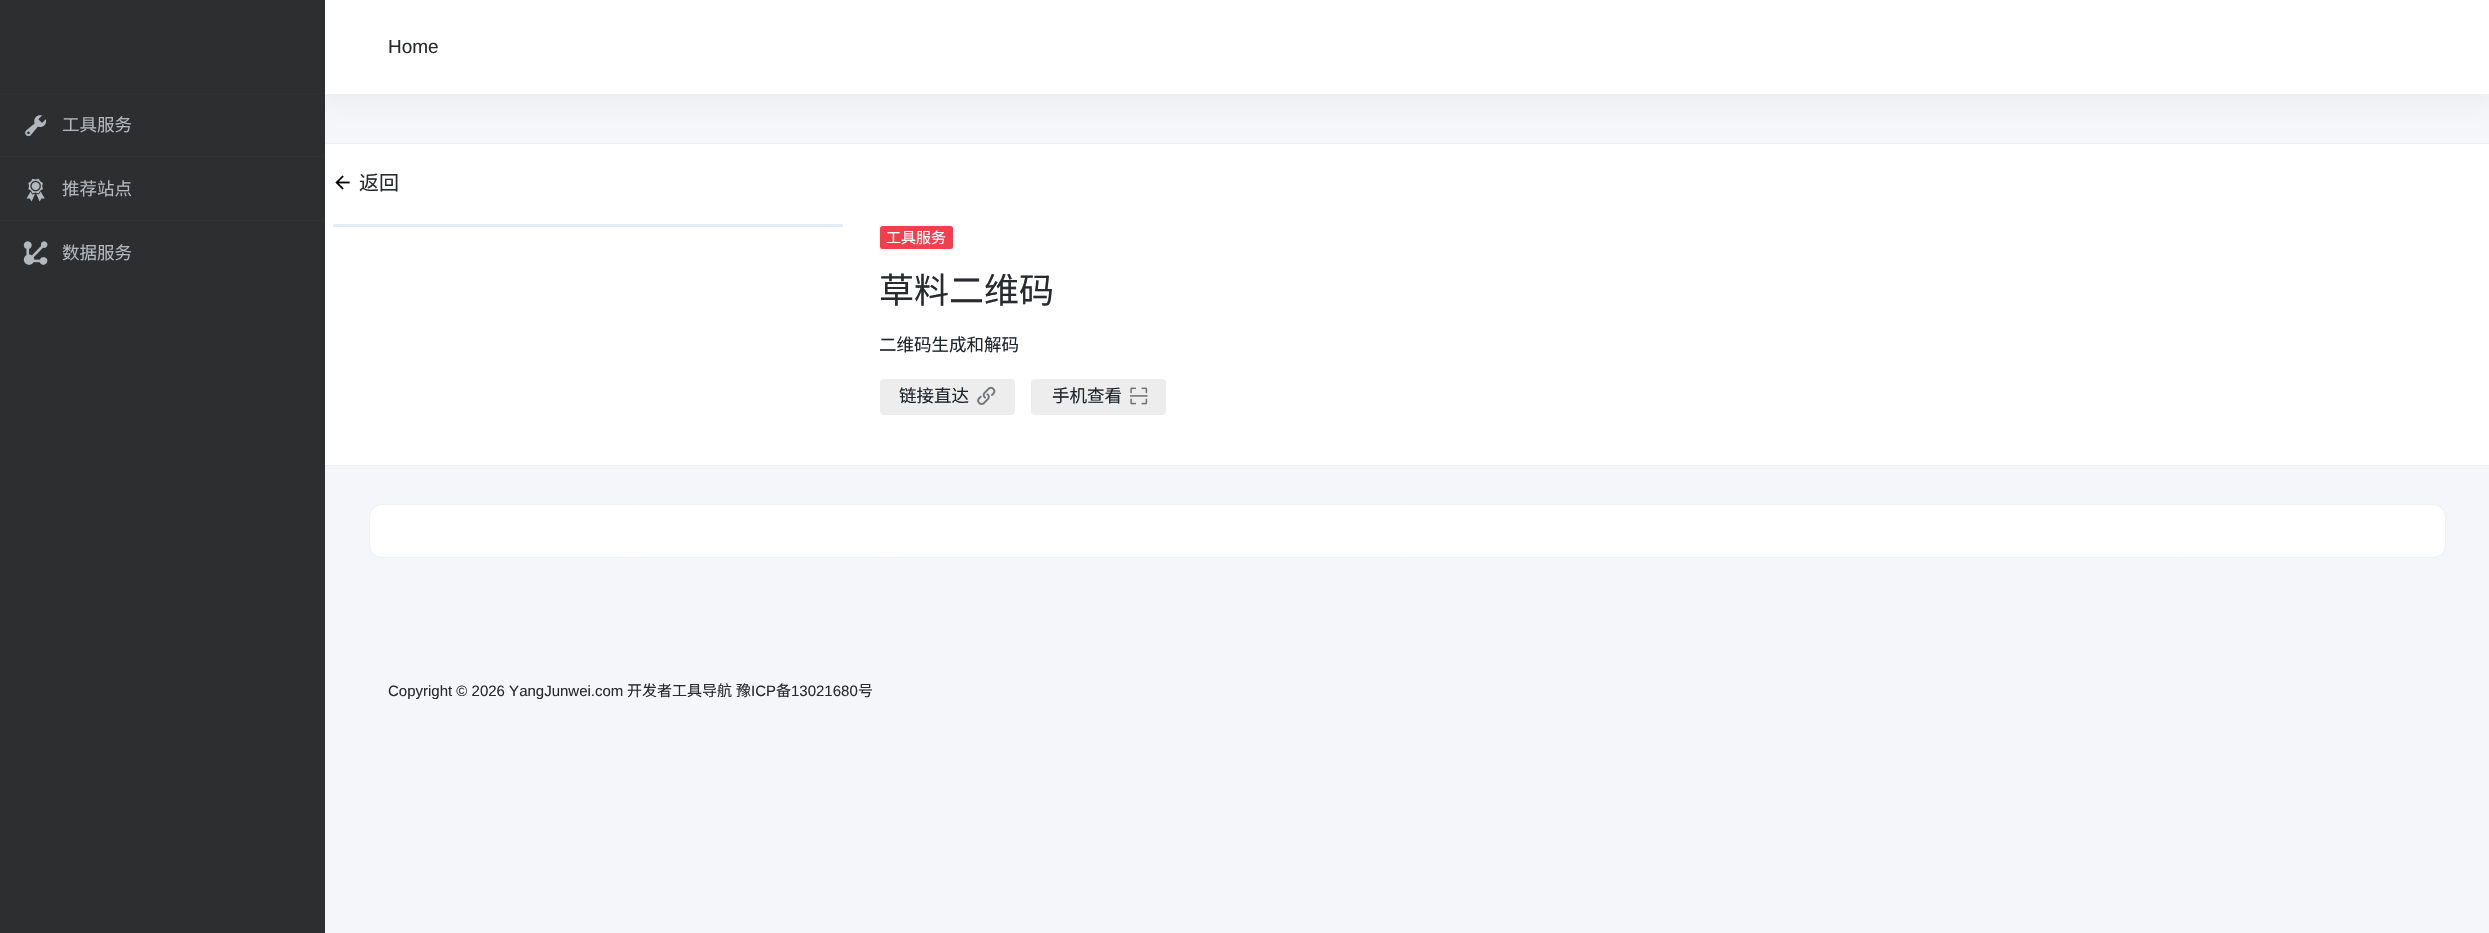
#include "include/core/SkBlurTypes.h"
#include "include/core/SkCanvas.h"
#include "include/core/SkData.h"
#include "include/core/SkFont.h"
#include "include/core/SkFontMgr.h"
#include "include/core/SkImage.h"
#include "include/core/SkMaskFilter.h"
#include "include/core/SkPaint.h"
#include "include/core/SkPathBuilder.h"
#include "include/core/SkTextBlob.h"
#include "include/effects/SkDashPathEffect.h"
#include "include/effects/SkGradientShader.h"
#include "include/utils/SkParsePath.h"

extern sk_sp<SkFontMgr> fontMgr;

void draw(SkCanvas* canvas) {
    SkPaint p;
    p.setAntiAlias(true);
    auto font = [&](const char* family, int weight, float size, bool italic = false) {
        SkFontStyle style(weight, SkFontStyle::kNormal_Width,
            italic ? SkFontStyle::kItalic_Slant : SkFontStyle::kUpright_Slant);
        SkFont result(fontMgr->matchFamilyStyle(family, style), size);
        result.setSubpixel(true);
        return result;
    };
    auto drawPhoto = [&](const char* path, float l, float t, float r, float b) {
        auto image = SkImages::DeferredFromEncodedData(SkData::MakeFromFileName(path));
        canvas->drawImageRect(image, SkRect::MakeLTRB(l, t, r, b), SkSamplingOptions());
    };
    canvas->clear(0xFFF5F6FA);
    p.setColor(0xFFFFFFFF);
    canvas->drawRect(SkRect::MakeLTRB(325, 144, 2489, 465), p);
    p.setStyle(SkPaint::kStroke_Style);
    p.setStrokeWidth(1);
    p.setColor(0xFFEFF0F2);
    canvas->drawRect(SkRect::MakeLTRB(288.5f, 143.5f, 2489.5f, 465.5f), p);
    p.setStyle(SkPaint::kFill_Style);
    p.setColor(0x0D0A0A0A);
    p.setMaskFilter(SkMaskFilter::MakeBlur(kNormal_SkBlurStyle, 15.5f));
    canvas->drawRect(SkRect::MakeLTRB(319, -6, 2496, 100), p);
    p.setMaskFilter(nullptr);
    p.setColor(0xFF2C2E2F);
    canvas->drawRect(SkRect::MakeLTRB(0, 0, 325, 933), p);
    p.setColor(0xFF303233);
    canvas->drawRect(SkRect::MakeLTRB(0, 93, 325, 94), p);
    drawPhoto("media/1.png", 25, 115, 47, 137);
    auto font1 = font("Noto Sans CJK SC", 400, 17.5f);
    p.setColor(0xFFB2B8BE);
    canvas->drawString("工具服务", 62, 131, font1, p);
    p.setColor(0xFF303233);
    canvas->drawRect(SkRect::MakeLTRB(0, 156, 325, 157), p);
    drawPhoto("media/2.png", 26, 178, 45, 202);
    p.setColor(0xFFB2B8BE);
    canvas->drawString("推荐站点", 62, 195, font1, p);
    p.setColor(0xFF303233);
    canvas->drawRect(SkRect::MakeLTRB(0, 220, 325, 221), p);
    drawPhoto("media/3.png", 23, 241, 48, 265);
    p.setColor(0xFFB2B8BE);
    canvas->drawString("数据服务", 62, 259, font1, p);
    p.setColor(0xFFFFFFFF);
    canvas->drawRect(SkRect::MakeLTRB(325, 0, 2489, 94), p);
    auto font2 = font("Liberation Sans", 400, 19);
    p.setColor(0xFF282A2D);
    canvas->drawString("Home", 388, 53, font2, p);
    drawPhoto("media/4.png", 335, 175, 350, 190);
    auto font3 = font("Noto Sans CJK SC", 400, 20);
    canvas->drawString("返回", 359, 190, font3, p);
    p.setColor(0xFFE4ECF3);
    canvas->drawRoundRect(SkRect::MakeLTRB(333, 224, 843, 227), 1.5f, 1.5f, p);
    p.setColor(0xFFF1404B);
    canvas->drawRoundRect(SkRect::MakeLTRB(880, 226, 953, 249), 2.5f, 2.5f, p);
    auto font4 = font("Noto Sans CJK SC", 400, 15);
    p.setColor(0xFFFFFFFF);
    canvas->drawString("工具服务", 886, 243, font4, p);
    auto font5 = font("Noto Sans CJK SC", 400, 35);
    p.setColor(0xFF282A2D);
    canvas->drawString("草料二维码", 879, 303, font5, p);
    p.setColor(0xFF1D232B);
    canvas->drawString("二维码生成和解码", 879, 351, font1, p);
    p.setColor(0xFFEDEDED);
    canvas->drawRoundRect(SkRect::MakeLTRB(880, 379, 1015, 415), 4, 4, p);
    p.setColor(0xFF1D232B);
    canvas->drawString("链接直达", 899, 402, font1, p);
    drawPhoto("media/5.png", 977, 386, 996, 405);
    p.setColor(0xFFEDEDED);
    canvas->drawRoundRect(SkRect::MakeLTRB(1031, 379, 1166, 415), 4, 4, p);
    p.setColor(0xFF1D232B);
    canvas->drawString("手机查看", 1052, 402, font1, p);
    drawPhoto("media/6.png", 1130, 387, 1148, 405);
    p.setColor(0xFFFFFFFF);
    canvas->drawRoundRect(SkRect::MakeLTRB(369.5f, 504.5f, 2445.5f, 557.5f), 12.5f, 12.5f, p);
    p.setStyle(SkPaint::kStroke_Style);
    p.setColor(0xFFEFF0F2);
    canvas->drawRoundRect(SkRect::MakeLTRB(369.5f, 504.5f, 2445.5f, 557.5f), 12.5f, 12.5f, p);
    auto font6 = font("Liberation Sans", 400, 15);
    p.setStyle(SkPaint::kFill_Style);
    p.setColor(0xFF282A2D);
    canvas->drawString("Copyright © 2026 YangJunwei.com", 388, 696, font6, p);
    canvas->drawString("开发者工具导航", 627, 696, font4, p);
    canvas->drawString("豫", 736, 696, font4, p);
    canvas->drawString("ICP", 751, 696, font6, p);
    canvas->drawString("备", 776, 696, font4, p);
    canvas->drawString("13021680", 791, 696, font6, p);
    canvas->drawString("号", 858, 696, font4, p);
}
